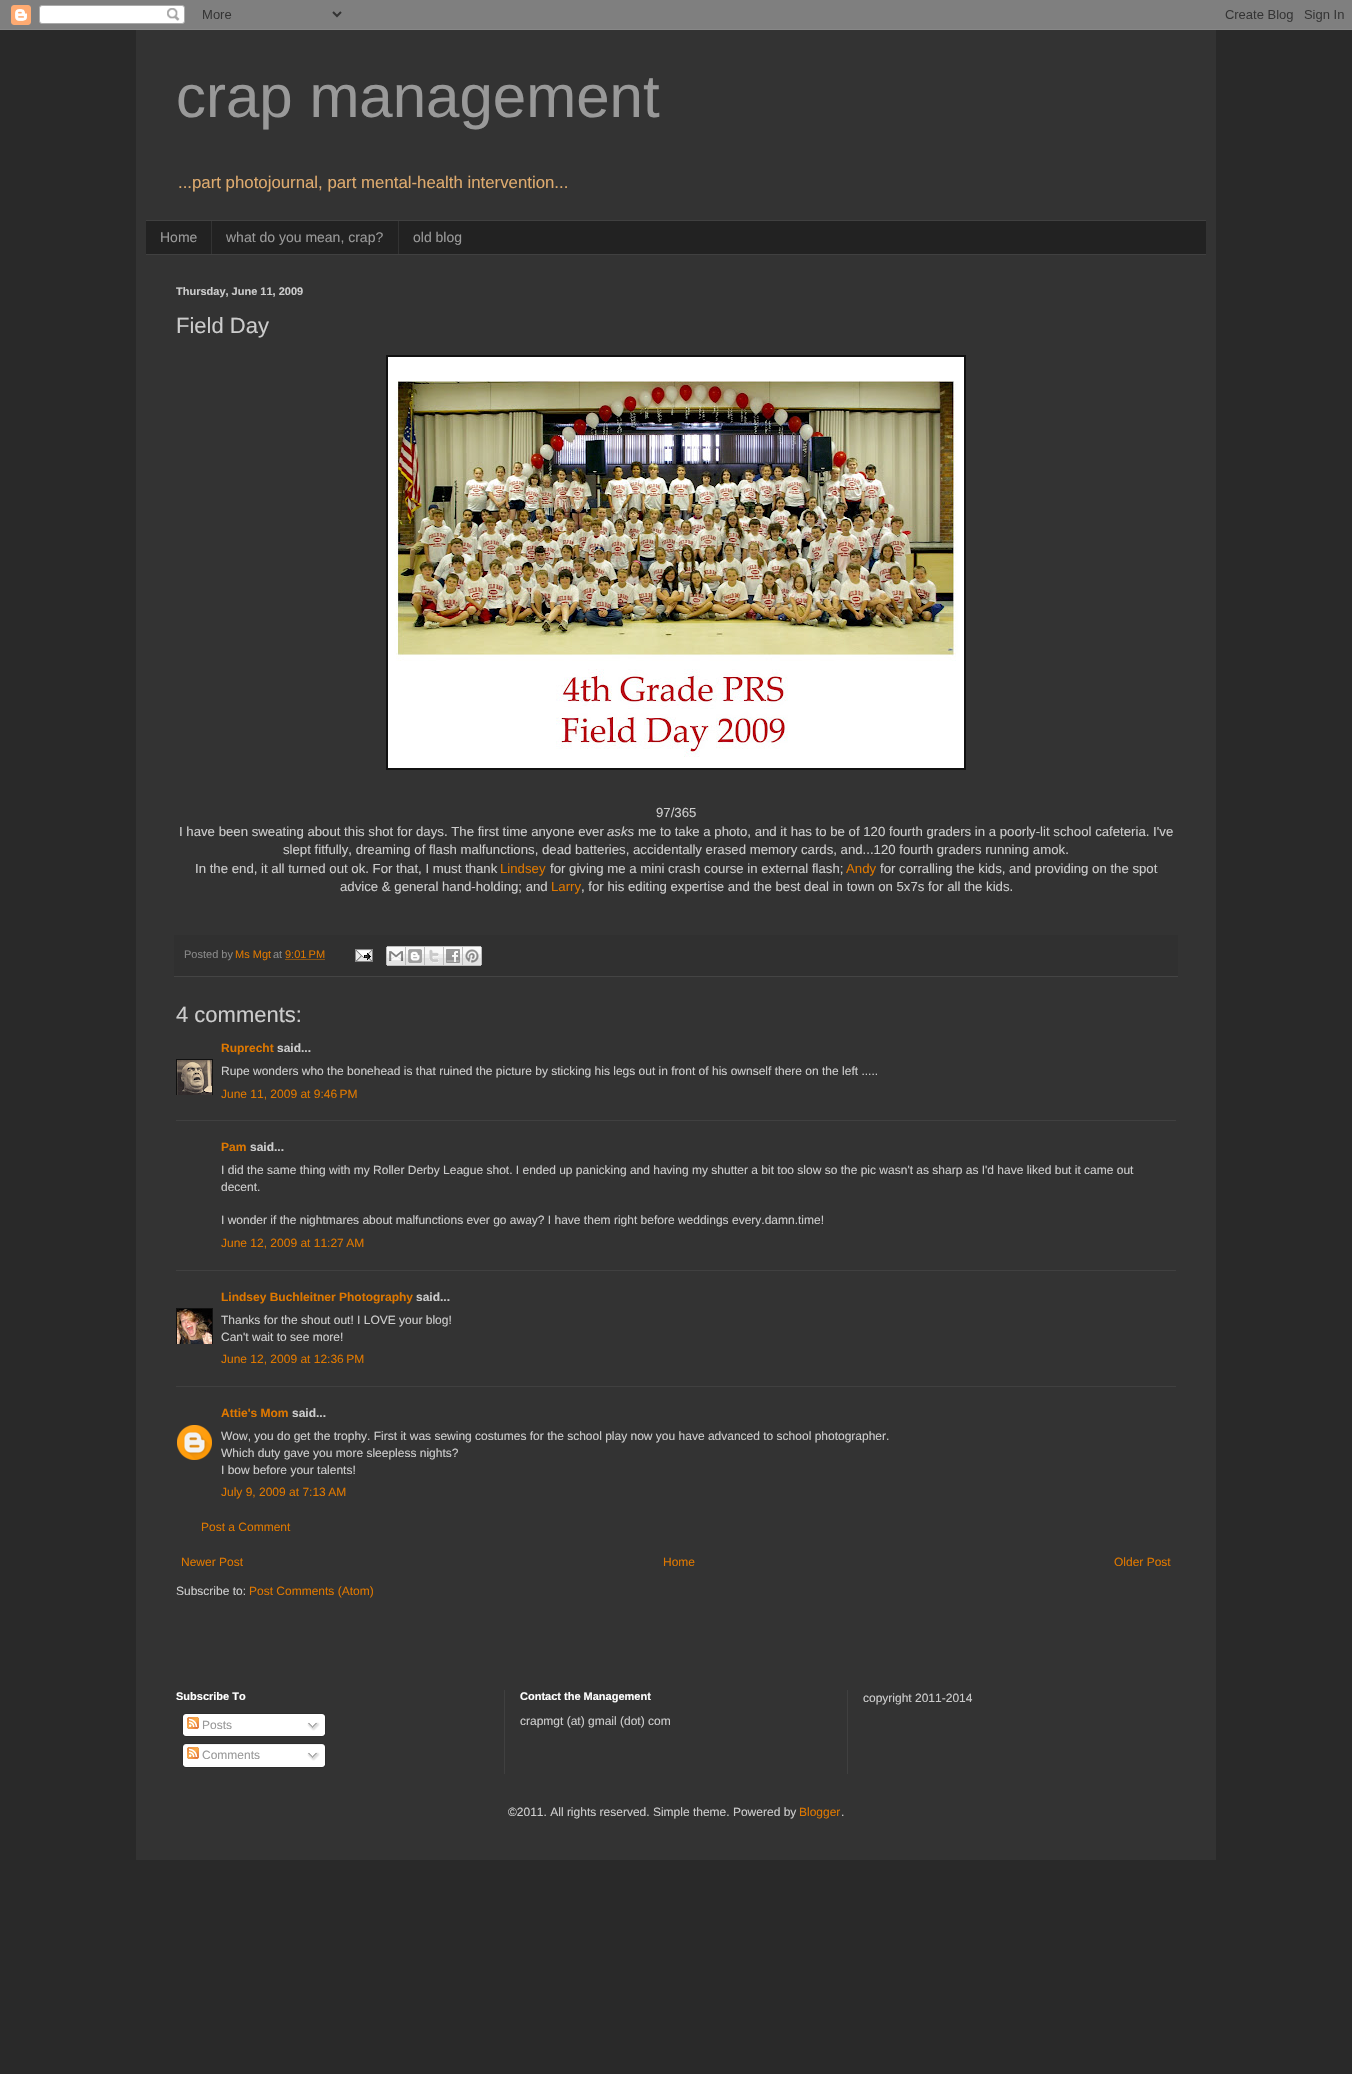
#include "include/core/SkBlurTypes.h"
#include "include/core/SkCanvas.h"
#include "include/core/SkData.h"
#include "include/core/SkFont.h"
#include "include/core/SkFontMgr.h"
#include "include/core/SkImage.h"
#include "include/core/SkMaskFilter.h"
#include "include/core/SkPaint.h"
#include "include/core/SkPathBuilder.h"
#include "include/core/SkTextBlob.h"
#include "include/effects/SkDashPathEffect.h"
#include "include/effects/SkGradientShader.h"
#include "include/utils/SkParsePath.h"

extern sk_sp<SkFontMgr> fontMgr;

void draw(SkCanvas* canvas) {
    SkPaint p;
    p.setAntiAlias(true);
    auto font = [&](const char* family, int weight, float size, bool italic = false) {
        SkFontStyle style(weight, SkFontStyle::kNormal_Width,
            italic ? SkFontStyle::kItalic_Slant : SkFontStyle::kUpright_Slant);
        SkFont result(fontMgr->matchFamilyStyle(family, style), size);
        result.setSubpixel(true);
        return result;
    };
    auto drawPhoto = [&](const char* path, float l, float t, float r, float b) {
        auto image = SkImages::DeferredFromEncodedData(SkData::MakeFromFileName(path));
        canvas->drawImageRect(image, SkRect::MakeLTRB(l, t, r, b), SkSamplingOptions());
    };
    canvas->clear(0xFF292929);
    drawPhoto("media/1.png", 0, 0, 1352, 30);
    p.setColor(0xFF333333);
    canvas->drawRect(SkRect::MakeLTRB(136, 30, 1216, 1860), p);
    auto font1 = font("Liberation Sans", 400, 60);
    p.setColor(0xFF999999);
    canvas->drawString("crap management", 176, 117, font1, p);
    auto font2 = font("Liberation Sans", 400, 16.8f);
    p.setColor(0xFFDDAA6E);
    canvas->drawString("...part photojournal, part mental-health intervention...", 178, 188, font2, p);
    {
        const struct { float l, t, r, b; SkColor color; } items[] = {
            {146, 221, 1206, 254, 0xFF222222},
            {146, 220, 1206, 221, 0xFF404040},
            {146, 254, 1206, 255, 0xFF404040},
        };
        for (auto [l, t, r, b, color] : items) {
            p.setColor(color);
            canvas->drawRect(SkRect::MakeLTRB(l, t, r, b), p);
        }
    }
    auto font3 = font("Liberation Sans", 400, 14);
    p.setColor(0xFF999999);
    canvas->drawString("Home", 160, 242, font3, p);
    p.setColor(0xFF333333);
    canvas->drawRect(SkRect::MakeLTRB(211, 221, 212, 254), p);
    p.setColor(0xFF999999);
    canvas->drawString("what do you mean, crap?", 226, 242, font3, p);
    p.setColor(0xFF333333);
    canvas->drawRect(SkRect::MakeLTRB(398, 221, 399, 254), p);
    p.setColor(0xFF999999);
    canvas->drawString("old blog", 413, 242, font3, p);
    auto font4 = font("Liberation Sans", 700, 11);
    p.setColor(0xFFCCCCCC);
    canvas->drawString("Thursday, June 11, 2009", 176, 295, font4, p);
    auto font5 = font("Liberation Sans", 400, 22);
    canvas->drawString("Field Day", 176, 333, font5, p);
    p.setColor(0xFF111111);
    canvas->drawRect(SkRect::MakeLTRB(386, 355, 966, 770), p);
    drawPhoto("media/2.png", 388, 357, 964, 768);
    auto font6 = font("Liberation Sans", 400, 13.2f);
    p.setColor(0xFFCCCCCC);
    canvas->drawString("97/365", 656, 817, font6, p);
    canvas->drawString("I have been sweating about this shot for days. The first time anyone ever", 179, 836, font6, p);
    auto font7 = font("Liberation Sans", 400, 13.2f, true);
    canvas->drawString("asks", 607, 836, font7, p);
    {
        const struct { const char* s; float x, y; } items[] = {
            {"me to take a photo, and it has to be of 120 fourth graders in a poorly-lit school cafeteria. I've", 638, 836},
            {"slept fitfully, dreaming of flash malfunctions, dead batteries, accidentally erased memory cards, and...120 fourth graders running amok.", 283, 854},
            {"In the end, it all turned out ok. For that, I must thank", 195, 873},
        };
        for (auto [s, x, y] : items) {
            canvas->drawString(s, x, y, font6, p);
        }
    }
    p.setColor(0xFFDD7700);
    canvas->drawString("Lindsey", 500, 873, font6, p);
    p.setColor(0xFFCCCCCC);
    canvas->drawString("for giving me a mini crash course in external flash;", 550, 873, font6, p);
    p.setColor(0xFFDD7700);
    canvas->drawString("Andy", 846, 873, font6, p);
    p.setColor(0xFFCCCCCC);
    canvas->drawString("for corralling the kids, and providing on the spot", 880, 873, font6, p);
    canvas->drawString("advice & general hand-holding; and", 340, 891, font6, p);
    p.setColor(0xFFDD7700);
    canvas->drawString("Larry", 551, 891, font6, p);
    p.setColor(0xFFCCCCCC);
    canvas->drawString(", for his editing expertise and the best deal in town on 5x7s for all the kids.", 581, 891, font6, p);
    p.setColor(0xFF303030);
    canvas->drawRect(SkRect::MakeLTRB(174, 935, 1178, 976), p);
    p.setColor(0xFF444444);
    canvas->drawRect(SkRect::MakeLTRB(174, 976, 1178, 977), p);
    auto font8 = font("Liberation Sans", 400, 11);
    p.setColor(0xFF888888);
    canvas->drawString("Posted by", 184, 958, font8, p);
    p.setColor(0xFFDD7700);
    canvas->drawString("Ms Mgt", 235, 958, font8, p);
    p.setColor(0xFF888888);
    canvas->drawString("at", 273, 958, font8, p);
    p.setColor(0xFFDD7700);
    canvas->drawString("9:01 PM", 285, 958, font8, p);
    p.setStyle(SkPaint::kStroke_Style);
    p.setStrokeWidth(1);
    p.setPathEffect(SkDashPathEffect::Make({{1, 1}}, 0));
    canvas->drawPath(SkPathBuilder().moveTo(285.5f, 959.5f).lineTo(325, 959.5f).detach(), p);
    p.setPathEffect(nullptr);
    drawPhoto("media/3.png", 355, 949, 373, 962);
    drawPhoto("media/4.png", 386, 946, 406, 966);
    drawPhoto("media/5.png", 406, 946, 425, 966);
    drawPhoto("media/6.png", 425, 946, 444, 966);
    drawPhoto("media/7.png", 444, 946, 463, 966);
    drawPhoto("media/8.png", 463, 946, 482, 966);
    p.setStyle(SkPaint::kFill_Style);
    p.setColor(0xFFCCCCCC);
    canvas->drawString("4 comments:", 176, 1022, font5, p);
    auto font9 = font("Liberation Sans", 700, 12);
    p.setColor(0xFFDD7700);
    canvas->drawString("Ruprecht", 221, 1052, font9, p);
    p.setColor(0xFFCCCCCC);
    canvas->drawString("said...", 277, 1052, font9, p);
    canvas->save();
    canvas->clipRect(SkRect::MakeLTRB(176, 1059, 213, 1095));
    p.setStyle(SkPaint::kStroke_Style);
    p.setColor(0xFF111111);
    canvas->drawRect(SkRect::MakeLTRB(176.5f, 1059.5f, 212.5f, 1095.5f), p);
    canvas->restore();
    drawPhoto("media/9.png", 177, 1060, 212, 1095);
    auto font10 = font("Liberation Sans", 400, 12);
    p.setStyle(SkPaint::kFill_Style);
    p.setColor(0xFFCCCCCC);
    canvas->drawString("Rupe wonders who the bonehead is that ruined the picture by sticking his legs out in front of his ownself there on the left .....", 221, 1075, font10, p);
    p.setColor(0xFFDD7700);
    canvas->drawString("June 11, 2009 at 9:46 PM", 221, 1098, font10, p);
    p.setColor(0xFF404040);
    canvas->drawRect(SkRect::MakeLTRB(176, 1120, 1176, 1121), p);
    p.setColor(0xFFDD7700);
    canvas->drawString("Pam", 221, 1151, font9, p);
    p.setColor(0xFFCCCCCC);
    canvas->drawString("said...", 250, 1151, font9, p);
    {
        const struct { const char* s; float x, y; } items[] = {
            {"I did the same thing with my Roller Derby League shot. I ended up panicking and having my shutter a bit too slow so the pic wasn't as sharp as I'd have liked but it came out", 221, 1174},
            {"decent.", 221, 1191},
            {"I wonder if the nightmares about malfunctions ever go away? I have them right before weddings every.damn.time!", 221, 1224},
        };
        for (auto [s, x, y] : items) {
            canvas->drawString(s, x, y, font10, p);
        }
    }
    p.setColor(0xFFDD7700);
    canvas->drawString("June 12, 2009 at 11:27 AM", 221, 1247, font10, p);
    p.setColor(0xFF404040);
    canvas->drawRect(SkRect::MakeLTRB(176, 1270, 1176, 1271), p);
    p.setColor(0xFFDD7700);
    canvas->drawString("Lindsey Buchleitner Photography", 221, 1301, font9, p);
    p.setColor(0xFFCCCCCC);
    canvas->drawString("said...", 416, 1301, font9, p);
    canvas->save();
    canvas->clipRect(SkRect::MakeLTRB(176, 1308, 213, 1344));
    p.setStyle(SkPaint::kStroke_Style);
    p.setColor(0xFF111111);
    canvas->drawRect(SkRect::MakeLTRB(176.5f, 1308.5f, 212.5f, 1344.5f), p);
    canvas->restore();
    drawPhoto("media/10.png", 177, 1309, 212, 1344);
    p.setStyle(SkPaint::kFill_Style);
    p.setColor(0xFFCCCCCC);
    canvas->drawString("Thanks for the shout out! I LOVE your blog!", 221, 1324, font10, p);
    canvas->drawString("Can't wait to see more!", 221, 1341, font10, p);
    p.setColor(0xFFDD7700);
    canvas->drawString("June 12, 2009 at 12:36 PM", 221, 1363, font10, p);
    p.setColor(0xFF404040);
    canvas->drawRect(SkRect::MakeLTRB(176, 1386, 1176, 1387), p);
    p.setColor(0xFFDD7700);
    canvas->drawString("Attie's Mom", 221, 1417, font9, p);
    p.setColor(0xFFCCCCCC);
    canvas->drawString("said...", 292, 1417, font9, p);
    drawPhoto("media/11.png", 177, 1425, 212, 1460);
    {
        const struct { const char* s; float x, y; } items[] = {
            {"Wow, you do get the trophy. First it was sewing costumes for the school play now you have advanced to school photographer.", 221, 1440},
            {"Which duty gave you more sleepless nights?", 221, 1457},
            {"I bow before your talents!", 221, 1474},
        };
        for (auto [s, x, y] : items) {
            canvas->drawString(s, x, y, font10, p);
        }
    }
    p.setColor(0xFFDD7700);
    {
        const struct { const char* s; float x, y; } items[] = {
            {"July 9, 2009 at 7:13 AM", 221, 1496},
            {"Post a Comment", 201, 1531},
            {"Newer Post", 181, 1566},
            {"Home", 663, 1566},
            {"Older Post", 1114, 1566},
        };
        for (auto [s, x, y] : items) {
            canvas->drawString(s, x, y, font10, p);
        }
    }
    p.setColor(0xFFCCCCCC);
    canvas->drawString("Subscribe to:", 176, 1595, font10, p);
    p.setColor(0xFFDD7700);
    canvas->drawString("Post Comments (Atom)", 249, 1595, font10, p);
    p.setColor(0xFFFFFFFF);
    canvas->drawString("Subscribe To", 176, 1700, font4, p);
    drawPhoto("media/12.png", 182, 1713, 326, 1734);
    drawPhoto("media/13.png", 187, 1717, 199, 1729);
    p.setColor(0xFF999999);
    canvas->drawString("Posts", 202, 1729, font10, p);
    drawPhoto("media/14.png", 307, 1722, 320, 1731);
    drawPhoto("media/15.png", 183, 1734, 326, 1737);
    drawPhoto("media/16.png", 182, 1743, 326, 1765);
    drawPhoto("media/13.png", 187, 1747, 199, 1759);
    canvas->drawString("Comments", 202, 1759, font10, p);
    drawPhoto("media/14.png", 307, 1752, 320, 1761);
    drawPhoto("media/15.png", 183, 1765, 326, 1768);
    p.setColor(0xFF404040);
    canvas->drawRect(SkRect::MakeLTRB(504, 1690, 505, 1774), p);
    p.setColor(0xFFFFFFFF);
    canvas->drawString("Contact the Management", 520, 1700, font4, p);
    p.setColor(0xFFCCCCCC);
    canvas->drawString("crapmgt (at) gmail (dot) com", 520, 1725, font10, p);
    p.setColor(0xFF404040);
    canvas->drawRect(SkRect::MakeLTRB(847, 1690, 848, 1774), p);
    p.setColor(0xFFCCCCCC);
    canvas->drawString("copyright 2011-2014", 863, 1702, font10, p);
    canvas->drawString("©2011. All rights reserved. Simple theme. Powered by", 508, 1816, font10, p);
    p.setColor(0xFFDD7700);
    canvas->drawString("Blogger", 799, 1816, font10, p);
    p.setColor(0xFFCCCCCC);
    canvas->drawString(".", 841, 1816, font10, p);
}
